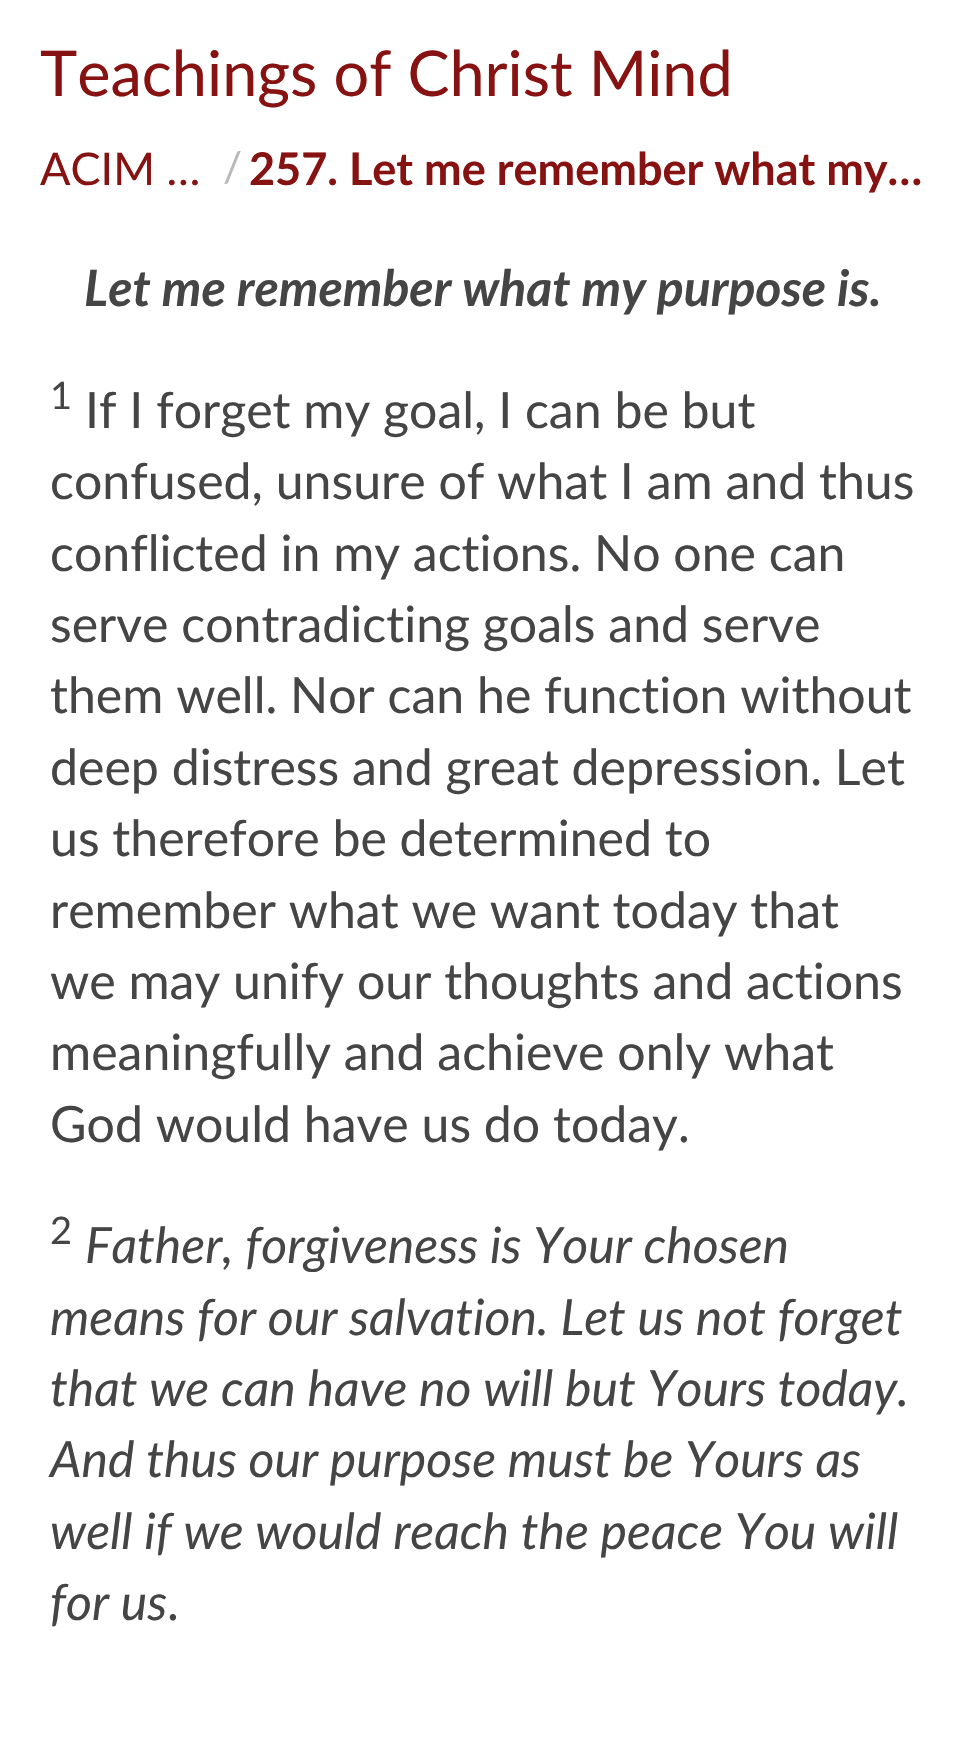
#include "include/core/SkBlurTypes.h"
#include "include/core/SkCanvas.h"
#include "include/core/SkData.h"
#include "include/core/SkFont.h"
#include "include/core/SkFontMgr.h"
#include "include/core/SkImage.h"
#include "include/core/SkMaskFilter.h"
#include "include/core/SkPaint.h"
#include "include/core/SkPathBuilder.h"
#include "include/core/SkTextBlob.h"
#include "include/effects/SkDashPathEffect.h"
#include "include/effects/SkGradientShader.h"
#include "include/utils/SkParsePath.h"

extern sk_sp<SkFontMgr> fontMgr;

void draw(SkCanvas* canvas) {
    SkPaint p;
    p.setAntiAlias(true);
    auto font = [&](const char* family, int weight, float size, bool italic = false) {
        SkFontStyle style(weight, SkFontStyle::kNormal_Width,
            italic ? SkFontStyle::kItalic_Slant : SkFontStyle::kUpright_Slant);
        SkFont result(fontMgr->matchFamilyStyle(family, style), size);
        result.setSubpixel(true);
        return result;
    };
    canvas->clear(0xFFFFFFFF);
    auto font1 = font("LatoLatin", 400, 63);
    p.setColor(0xFF871212);
    canvas->drawString("Teachings of Christ Mind", 40, 96, font1, p);
    auto font2 = font("LatoLatin", 400, 45);
    canvas->drawString("ACIM …", 40, 185, font2, p);
    auto font3 = font("LatoLatin", 400, 42);
    p.setColor(0xFFB8B8B8);
    canvas->drawString("/", 223, 182, font3, p);
    auto font4 = font("LatoLatin", 700, 45);
    p.setColor(0xFF871212);
    canvas->drawString("257. Let me remember what my…", 249, 185, font4, p);
    auto font5 = font("LatoLatin", 700, 50, true);
    p.setColor(0xFF454545);
    canvas->drawString("Let me remember what my purpose is.", 84, 306, font5, p);
    auto font6 = font("LatoLatin", 400, 38);
    canvas->drawString("1", 50, 409, font6, p);
    auto font7 = font("LatoLatin", 400, 50);
    {
        const struct { const char* s; float x, y; } items[] = {
            {"If I forget my goal, I can be but", 85, 428},
            {"confused, unsure of what I am and thus", 50, 499},
            {"conflicted in my actions. No one can", 50, 571},
            {"serve contradicting goals and serve", 50, 642},
            {"them well. Nor can he function without", 50, 713},
            {"deep distress and great depression. Let", 50, 785},
            {"us therefore be determined to", 50, 856},
            {"remember what we want today that", 50, 928},
            {"we may unify our thoughts and actions", 50, 999},
            {"meaningfully and achieve only what", 50, 1070},
            {"God would have us do today.", 50, 1142},
        };
        for (auto [s, x, y] : items) {
            canvas->drawString(s, x, y, font7, p);
        }
    }
    canvas->drawString("2", 50, 1244, font6, p);
    auto font8 = font("LatoLatin", 400, 50, true);
    {
        const struct { const char* s; float x, y; } items[] = {
            {"Father, forgiveness is Your chosen", 85, 1263},
            {"means for our salvation. Let us not forget", 50, 1335},
            {"that we can have no will but Yours today.", 50, 1406},
            {"And thus our purpose must be Yours as", 50, 1477},
            {"well if we would reach the peace You will", 50, 1549},
            {"for us", 50, 1620},
        };
        for (auto [s, x, y] : items) {
            canvas->drawString(s, x, y, font8, p);
        }
    }
    canvas->drawString(".", 167, 1620, font7, p);
}
